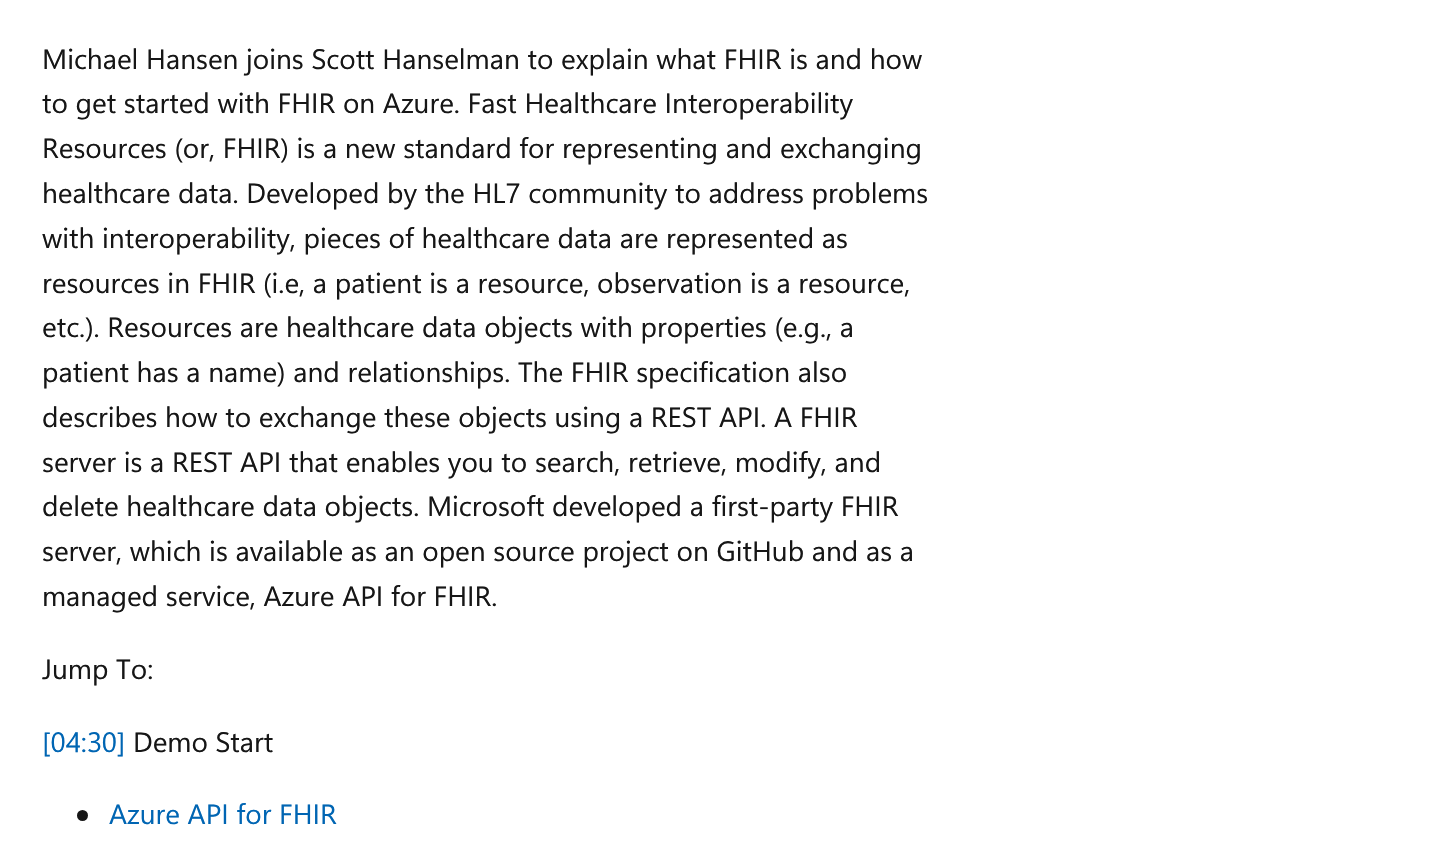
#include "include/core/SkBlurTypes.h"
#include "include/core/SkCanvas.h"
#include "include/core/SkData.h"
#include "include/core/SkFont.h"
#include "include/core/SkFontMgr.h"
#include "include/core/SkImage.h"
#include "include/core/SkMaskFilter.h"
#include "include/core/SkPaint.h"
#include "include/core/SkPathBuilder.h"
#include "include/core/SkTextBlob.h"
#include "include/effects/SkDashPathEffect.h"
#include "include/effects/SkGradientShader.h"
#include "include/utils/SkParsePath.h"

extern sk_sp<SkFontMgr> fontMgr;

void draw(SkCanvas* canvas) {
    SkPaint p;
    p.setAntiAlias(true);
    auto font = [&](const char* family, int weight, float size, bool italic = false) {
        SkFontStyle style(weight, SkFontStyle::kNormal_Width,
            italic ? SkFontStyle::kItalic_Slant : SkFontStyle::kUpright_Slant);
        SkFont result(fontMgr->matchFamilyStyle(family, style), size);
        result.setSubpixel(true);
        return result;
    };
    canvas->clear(0xFFFFFFFF);
    auto font1 = font("Segoe UI", 400, 28);
    p.setColor(0xFF161616);
    {
        const struct { const char* s; float x, y; } items[] = {
            {"Michael Hansen joins Scott Hanselman to explain what FHIR is and how", 42, 69},
            {"to get started with FHIR on Azure. Fast Healthcare Interoperability", 42, 113},
            {"Resources (or, FHIR) is a new standard for representing and exchanging", 42, 158},
            {"healthcare data. Developed by the HL7 community to address problems", 42, 203},
            {"with interoperability, pieces of healthcare data are represented as", 42, 248},
            {"resources in FHIR (i.e, a patient is a resource, observation is a resource,", 42, 293},
            {"etc.). Resources are healthcare data objects with properties (e.g., a", 42, 337},
            {"patient has a name) and relationships. The FHIR specification also", 42, 382},
            {"describes how to exchange these objects using a REST API. A FHIR", 42, 427},
            {"server is a REST API that enables you to search, retrieve, modify, and", 42, 472},
            {"delete healthcare data objects. Microsoft developed a first-party FHIR", 42, 516},
            {"server, which is available as an open source project on GitHub and as a", 42, 561},
            {"managed service, Azure API for FHIR.", 42, 606},
            {"Jump To:", 42, 679},
        };
        for (auto [s, x, y] : items) {
            canvas->drawString(s, x, y, font1, p);
        }
    }
    p.setColor(0xFF0065B3);
    canvas->drawString("[04:30]", 42, 752, font1, p);
    p.setColor(0xFF161616);
    canvas->drawString("Demo Start", 133, 752, font1, p);
    canvas->drawCircle(82.5f, 815.5f, 5.5f, p);
    p.setColor(0xFF0065B3);
    canvas->drawString("Azure API for FHIR", 109, 824, font1, p);
}
